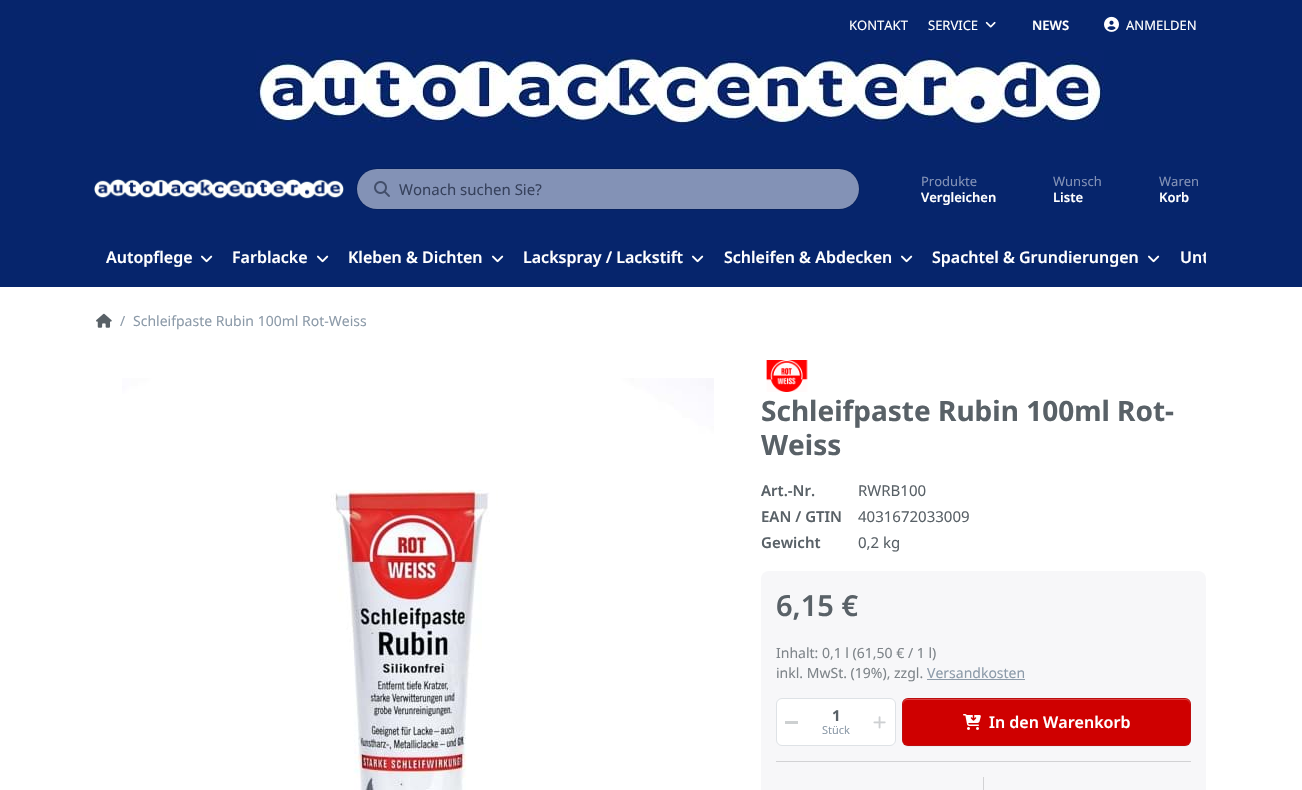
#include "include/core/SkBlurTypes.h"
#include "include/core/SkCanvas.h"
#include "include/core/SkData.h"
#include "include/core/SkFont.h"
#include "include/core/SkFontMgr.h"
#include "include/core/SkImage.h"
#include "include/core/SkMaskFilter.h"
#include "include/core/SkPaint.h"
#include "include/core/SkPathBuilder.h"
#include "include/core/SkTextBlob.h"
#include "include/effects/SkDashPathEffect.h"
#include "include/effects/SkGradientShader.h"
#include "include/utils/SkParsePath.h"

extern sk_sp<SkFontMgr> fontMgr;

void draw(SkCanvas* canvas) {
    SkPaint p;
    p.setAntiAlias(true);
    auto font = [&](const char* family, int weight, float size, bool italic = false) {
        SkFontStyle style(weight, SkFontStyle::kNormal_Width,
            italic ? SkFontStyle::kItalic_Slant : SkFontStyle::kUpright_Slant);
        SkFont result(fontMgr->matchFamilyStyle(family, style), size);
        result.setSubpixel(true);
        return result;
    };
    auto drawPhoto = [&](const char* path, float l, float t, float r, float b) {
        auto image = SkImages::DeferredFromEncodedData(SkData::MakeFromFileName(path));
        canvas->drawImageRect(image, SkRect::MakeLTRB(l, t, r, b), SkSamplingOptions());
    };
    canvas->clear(0xFFFFFFFF);
    p.setColor(0xFF06256C);
    canvas->drawRect(SkRect::MakeLTRB(0, 0, 1302, 287), p);
    auto font1 = font("Noto Sans", 400, 13);
    p.setColor(0xFFFFFFFF);
    canvas->drawString("KONTAKT", 849, 30, font1, p);
    canvas->drawString("SERVICE", 928, 30, font1, p);
    drawPhoto("media/1.png", 985, 21, 996, 28);
    auto font2 = font("Noto Sans", 600, 13);
    canvas->drawString("NEWS", 1032, 30, font2, p);
    drawPhoto("media/2.png", 1104, 16, 1119, 32);
    canvas->drawString("ANMELDEN", 1126, 30, font1, p);
    drawPhoto("media/3.png", 256, 50, 1104, 130);
    drawPhoto("media/4.png", 94, 178, 344, 199);
    p.setColor(0xFF8392B6);
    canvas->drawRoundRect(SkRect::MakeLTRB(357, 169, 859, 209), 20, 20, p);
    p.setStyle(SkPaint::kStroke_Style);
    p.setStrokeWidth(1);
    p.setColor(0x1F000000);
    canvas->drawRoundRect(SkRect::MakeLTRB(356.5f, 168.5f, 859.5f, 209.5f), 20.5f, 20.5f, p);
    drawPhoto("media/5.png", 374, 181, 390, 197);
    auto font3 = font("Noto Sans", 400, 15);
    p.setStyle(SkPaint::kFill_Style);
    p.setColor(0xFF36415C);
    canvas->drawString("Wonach suchen Sie?", 399, 195, font3, p);
    p.setColor(0xFF8392B6);
    canvas->drawString("Produkte", 921, 186, font1, p);
    p.setColor(0xFFFFFFFF);
    canvas->drawString("Vergleichen", 921, 202, font2, p);
    p.setColor(0xFF8392B6);
    canvas->drawString("Wunsch", 1053, 186, font1, p);
    p.setColor(0xFFFFFFFF);
    canvas->drawString("Liste", 1053, 202, font2, p);
    p.setColor(0xFF8392B6);
    canvas->drawString("Waren", 1159, 186, font1, p);
    p.setColor(0xFFFFFFFF);
    canvas->drawString("Korb", 1159, 202, font2, p);
    auto font4 = font("Noto Sans", 600, 16);
    canvas->drawString("Autopflege", 106, 263, font4, p);
    drawPhoto("media/6.png", 201, 255, 213, 263);
    canvas->drawString("Farblacke", 232, 263, font4, p);
    drawPhoto("media/6.png", 317, 255, 329, 263);
    canvas->drawString("Kleben & Dichten", 348, 263, font4, p);
    drawPhoto("media/6.png", 492, 255, 504, 263);
    canvas->drawString("Lackspray / Lackstift", 523, 263, font4, p);
    drawPhoto("media/6.png", 692, 255, 704, 263);
    canvas->drawString("Schleifen & Abdecken", 724, 263, font4, p);
    drawPhoto("media/6.png", 901, 255, 913, 263);
    canvas->drawString("Spachtel & Grundierungen", 932, 263, font4, p);
    drawPhoto("media/6.png", 1148, 255, 1160, 263);
    canvas->save();
    canvas->clipRect(SkRect::MakeLTRB(96, 227, 1206, 287));
    canvas->drawString("Unt", 1180, 263, font4, p);
    canvas->restore();
    drawPhoto("media/7.png", 96, 313, 112, 328);
    auto font5 = font("Noto Sans", 400, 14);
    p.setColor(0xFF8D9BA9);
    canvas->drawString("/", 120, 326, font5, p);
    canvas->drawString("Schleifpaste Rubin 100ml Rot-Weiss", 133, 326, font5, p);
    drawPhoto("media/8.png", 122, 378, 714, 790);
    drawPhoto("media/9.png", 766, 360, 808, 392);
    auto font6 = font("Noto Sans", 700, 28);
    p.setColor(0xFF596167);
    canvas->drawString("Schleifpaste Rubin 100ml Rot-", 761, 421, font6, p);
    canvas->drawString("Weiss", 761, 455, font6, p);
    auto font7 = font("Noto Sans", 600, 15);
    canvas->drawString("Art.-Nr.", 761, 496, font7, p);
    canvas->drawString("RWRB100", 858, 496, font3, p);
    canvas->drawString("EAN / GTIN", 761, 522, font7, p);
    canvas->drawString("4031672033009", 858, 522, font3, p);
    canvas->drawString("Gewicht", 761, 548, font7, p);
    canvas->drawString("0,2 kg", 858, 548, font3, p);
    p.setColor(0xFFF7F7F9);
    canvas->drawRoundRect(SkRect::MakeLTRB(761, 571, 1206, 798), 8, 8, p);
    auto font8 = font("Noto Sans", 600, 29);
    p.setColor(0xFF596167);
    canvas->drawString("6,15 €", 776, 616, font8, p);
    p.setColor(0xFF7F858A);
    canvas->drawString("Inhalt: 0,1 l (61,50 € / 1 l)", 776, 658, font5, p);
    canvas->drawString("inkl. MwSt. (19%), zzgl.", 776, 678, font5, p);
    p.setColor(0xFF8D9BA9);
    canvas->drawString("Versandkosten", 927, 678, font5, p);
    canvas->drawRect(SkRect::MakeLTRB(927, 679, 1025, 680), p);
    p.setColor(0xFFFFFFFF);
    canvas->drawRoundRect(SkRect::MakeLTRB(776.5f, 698.5f, 895.5f, 745.5f), 5.5f, 5.5f, p);
    p.setStyle(SkPaint::kStroke_Style);
    p.setColor(0xFFDEE2E6);
    canvas->drawRoundRect(SkRect::MakeLTRB(776.5f, 698.5f, 895.5f, 745.5f), 5.5f, 5.5f, p);
    p.setStyle(SkPaint::kFill_Style);
    p.setColor(0xFFCDD0D1);
    canvas->drawRect(SkRect::MakeLTRB(785, 721, 798, 724), p);
    auto font9 = font("Noto Sans", 700, 15);
    p.setColor(0xFF596167);
    canvas->drawString("1", 832, 721, font9, p);
    drawPhoto("media/10.png", 873, 716, 886, 729);
    auto font10 = font("Noto Sans", 400, 11);
    p.setColor(0xFF8D9BA9);
    canvas->drawString("Stück", 822, 734, font10, p);
    p.setColor(0xFFEEEFF1);
    canvas->drawPath(SkPathBuilder().moveTo(902, 740).lineTo(902, 741).cubicTo(902, 744, 905, 747, 908, 747).lineTo(1185, 747).cubicTo(1188, 747, 1191, 744, 1191, 741).lineTo(1191, 740).cubicTo(1191, 743, 1188, 746, 1185, 746).lineTo(908, 746).cubicTo(905, 746, 902, 743, 902, 740).close().detach(), p);
    p.setColor(0xFFCF0000);
    canvas->drawRoundRect(SkRect::MakeLTRB(902, 698, 1191, 746), 6, 6, p);
    p.setColor(0xFFDB4040);
    canvas->drawPath(SkPathBuilder().moveTo(908, 700).lineTo(1185, 700).cubicTo(1188, 700, 1190, 702, 1190, 705).lineTo(1190, 704).cubicTo(1190, 701, 1188, 699, 1185, 699).lineTo(908, 699).cubicTo(905, 699, 903, 701, 903, 704).lineTo(903, 705).cubicTo(903, 702, 905, 700, 908, 700).close().detach(), p);
    p.setStyle(SkPaint::kStroke_Style);
    p.setColor(0x26596167);
    canvas->drawRoundRect(SkRect::MakeLTRB(902.5f, 698.5f, 1190.5f, 745.5f), 5.5f, 5.5f, p);
    drawPhoto("media/11.png", 963, 714, 981, 730);
    p.setStyle(SkPaint::kFill_Style);
    p.setColor(0xFFFFFFFF);
    canvas->drawString("In den Warenkorb", 989, 728, font4, p);
    p.setColor(0xFFD2D2D4);
    canvas->drawRect(SkRect::MakeLTRB(776, 761, 1191, 762), p);
    canvas->drawRect(SkRect::MakeLTRB(983, 777, 984, 790), p);
}
